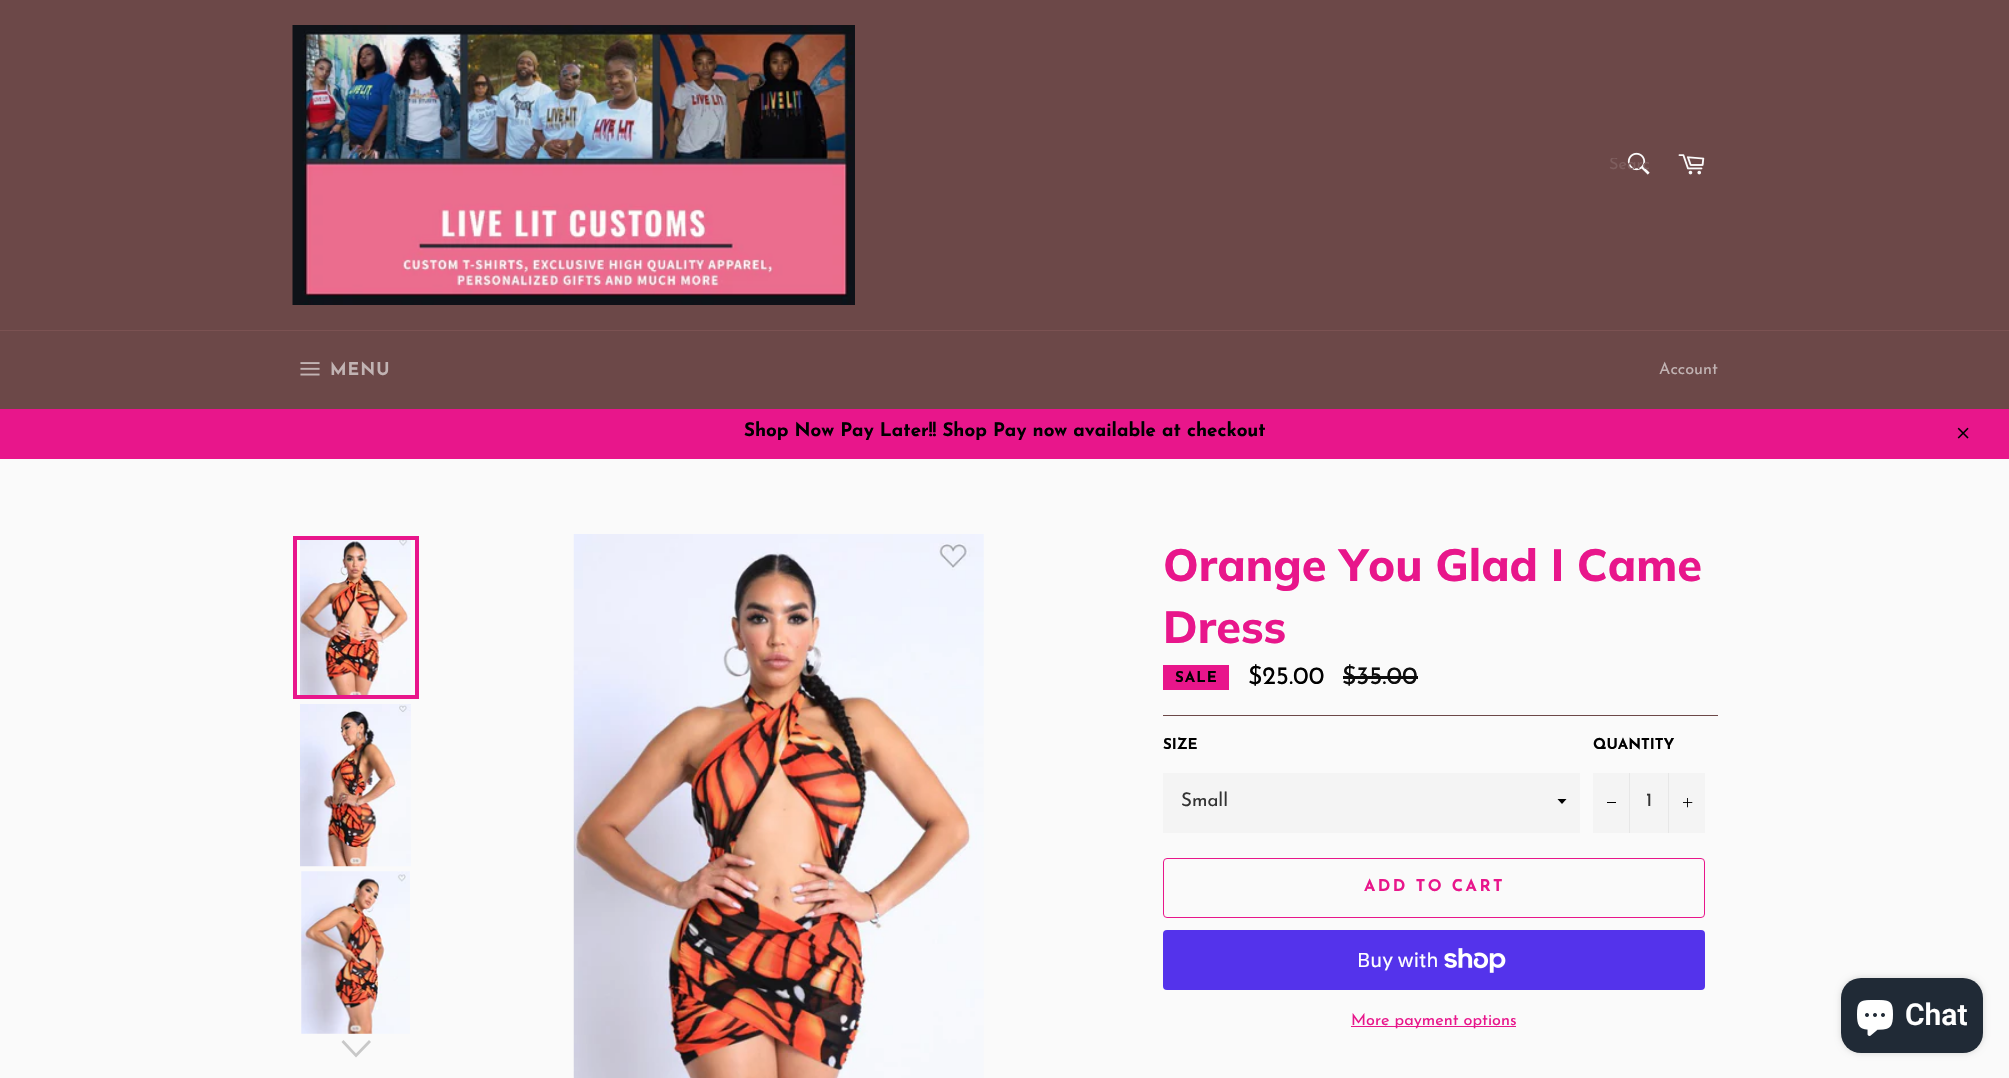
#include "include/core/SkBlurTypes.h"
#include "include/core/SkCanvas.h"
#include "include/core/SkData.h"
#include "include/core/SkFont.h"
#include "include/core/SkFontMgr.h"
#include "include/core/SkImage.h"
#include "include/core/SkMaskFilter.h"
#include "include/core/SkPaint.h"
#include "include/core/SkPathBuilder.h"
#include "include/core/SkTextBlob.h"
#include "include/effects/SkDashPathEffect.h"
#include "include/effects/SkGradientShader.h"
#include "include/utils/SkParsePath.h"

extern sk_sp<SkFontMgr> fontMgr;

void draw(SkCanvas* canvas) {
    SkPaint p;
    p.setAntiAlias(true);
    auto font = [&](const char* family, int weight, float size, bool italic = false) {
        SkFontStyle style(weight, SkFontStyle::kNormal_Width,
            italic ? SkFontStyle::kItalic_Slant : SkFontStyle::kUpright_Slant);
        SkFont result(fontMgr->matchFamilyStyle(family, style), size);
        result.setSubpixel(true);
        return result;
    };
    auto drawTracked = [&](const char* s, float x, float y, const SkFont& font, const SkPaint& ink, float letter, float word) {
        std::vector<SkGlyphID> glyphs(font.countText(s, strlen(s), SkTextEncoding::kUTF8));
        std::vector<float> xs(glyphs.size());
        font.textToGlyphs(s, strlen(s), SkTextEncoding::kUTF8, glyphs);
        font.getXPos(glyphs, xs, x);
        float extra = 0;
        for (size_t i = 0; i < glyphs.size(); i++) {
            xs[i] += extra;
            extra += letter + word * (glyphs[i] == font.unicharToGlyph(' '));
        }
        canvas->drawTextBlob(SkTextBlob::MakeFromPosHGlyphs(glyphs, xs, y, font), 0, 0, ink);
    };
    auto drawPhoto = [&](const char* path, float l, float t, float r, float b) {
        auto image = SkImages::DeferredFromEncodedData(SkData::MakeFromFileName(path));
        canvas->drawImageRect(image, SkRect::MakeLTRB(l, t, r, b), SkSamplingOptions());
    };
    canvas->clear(0xFF6C4848);
    drawPhoto("media/1.png", 292, 25, 855, 305);
    drawPhoto("media/2.png", 1627, 152, 1650, 175);
    canvas->save();
    canvas->clipRect(SkRect::MakeLTRB(1609, 158, 1649, 174));
    auto font1 = font("Josefin Sans", 400, 16.25f);
    p.setColor(0xFF7E5E5E);
    canvas->drawString("Searc", 1609, 169, font1, p);
    canvas->restore();
    drawPhoto("media/3.png", 1678, 154, 1705, 175);
    p.setColor(0xFF7B5252);
    canvas->drawRect(SkRect::MakeLTRB(0, 330, 2009, 331), p);
    drawPhoto("media/4.png", 300, 362, 320, 376);
    auto font2 = font("Josefin Sans", 700, 17.5f);
    p.setColor(0xFFC1B3B3);
    drawTracked("MENU", 330, 375, font2, p, 1, 0);
    canvas->drawString("Account", 1659, 374, font1, p);
    p.setColor(0xFFE8168B);
    canvas->drawRect(SkRect::MakeLTRB(0, 409, 2009, 459), p);
    auto font3 = font("Josefin Sans", 700, 18.75f);
    p.setColor(0xFF000000);
    canvas->drawString("Shop Now Pay Later!! Shop Pay now available at checkout", 744, 436, font3, p);
    drawPhoto("media/5.png", 1957, 427, 1969, 439);
    p.setColor(0xFFFAFAFA);
    canvas->drawRect(SkRect::MakeLTRB(0, 459, 2009, 1078), p);
    drawPhoto("media/6.png", 300, 540, 411, 695);
    p.setStyle(SkPaint::kStroke_Style);
    p.setStrokeWidth(4);
    p.setColor(0xFFE8168B);
    canvas->drawRect(SkRect::MakeLTRB(295, 538, 417, 697), p);
    drawPhoto("media/7.png", 300, 704, 411, 867);
    drawPhoto("media/8.png", 301, 871, 410, 1034);
    p.setStyle(SkPaint::kFill_Style);
    p.setColor(0xFFC8C8C8);
    canvas->drawPath(SkPathBuilder().moveTo(369, 1040).lineTo(371, 1042).lineTo(356, 1057.5f).lineTo(341.5f, 1042).lineTo(343.5f, 1040).lineTo(356, 1053.5f).close().detach(), p);
    drawPhoto("media/9.png", 573, 534, 984, 1078);
    auto font4 = font("Muli", 800, 45);
    p.setColor(0xFFE8168B);
    canvas->drawString("Orange You Glad I Came", 1163, 581, font4, p);
    canvas->drawString("Dress", 1163, 643, font4, p);
    canvas->drawRect(SkRect::MakeLTRB(1163, 665, 1229, 690), p);
    auto font5 = font("Josefin Sans", 700, 15);
    p.setColor(0xFF000000);
    drawTracked("SALE", 1175, 682, font5, p, 1, 0);
    auto font6 = font("Josefin Sans", 400, 25);
    canvas->drawString("$25.00", 1248, 684, font6, p);
    p.setColor(0xFF0D0D0D);
    canvas->drawString("$35.00", 1342, 684, font6, p);
    canvas->drawRect(SkRect::MakeLTRB(1343, 676, 1418, 679), p);
    p.setColor(0xFF6C4848);
    canvas->drawRect(SkRect::MakeLTRB(1163, 715, 1718, 716), p);
    p.setColor(0xFF000000);
    canvas->drawString("SIZE", 1163, 749, font5, p);
    p.setColor(0xFFF4F4F4);
    canvas->drawRect(SkRect::MakeLTRB(1163, 773, 1580, 833), p);
    p.setColor(0xFF000000);
    canvas->drawPath(SkPathBuilder().moveTo(1557.5f, 799).lineTo(1562, 804).lineTo(1566.5f, 799).close().detach(), p);
    auto font7 = font("Josefin Sans", 400, 18.75f);
    p.setColor(0xFF333333);
    canvas->drawString("Small", 1181, 806, font7, p);
    p.setColor(0xFF000000);
    canvas->drawString("QUANTITY", 1593, 749, font5, p);
    {
        const struct { float l, t, r, b; SkColor color; } items[] = {
            {1593, 773, 1705, 833, 0xFFF4F4F4},
            {1629, 773, 1630, 833, 0xFFE7E7E7},
            {1607, 802, 1616, 803, 0xFF000000},
        };
        for (auto [l, t, r, b, color] : items) {
            p.setColor(color);
            canvas->drawRect(SkRect::MakeLTRB(l, t, r, b), p);
        }
    }
    p.setColor(0xFF333333);
    canvas->drawString("1", 1646, 806, font7, p);
    p.setColor(0xFFE7E7E7);
    canvas->drawRect(SkRect::MakeLTRB(1668, 773, 1669, 833), p);
    drawPhoto("media/10.png", 1683, 798, 1693, 808);
    p.setStyle(SkPaint::kStroke_Style);
    p.setStrokeWidth(1);
    p.setColor(0xFFE8168B);
    canvas->drawRoundRect(SkRect::MakeLTRB(1163.5f, 858.5f, 1704.5f, 917.5f), 3.5f, 3.5f, p);
    auto font8 = font("Josefin Sans", 700, 16.25f);
    p.setStyle(SkPaint::kFill_Style);
    drawTracked("ADD TO CART", 1364, 891, font8, p, 2.5f, 0);
    p.setColor(0xFF5433EB);
    canvas->drawRoundRect(SkRect::MakeLTRB(1163, 930, 1705, 990), 4, 4, p);
    auto font9 = font("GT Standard", 400, 20);
    p.setColor(0xFFFFFFFF);
    canvas->drawString("Buy with", 1357, 967, font9, p);
    drawPhoto("media/11.png", 1444, 948, 1506, 973);
    p.setColor(0xFFE8168B);
    canvas->drawRect(SkRect::MakeLTRB(1351, 1026, 1516, 1027), p);
    canvas->drawString("More payment options", 1351, 1025, font1, p);
    p.setColor(0x26000000);
    p.setMaskFilter(SkMaskFilter::MakeBlur(kNormal_SkBlurStyle, 3));
    canvas->drawRoundRect(SkRect::MakeLTRB(1841, 978, 1983, 1053), 20, 20, p);
    p.setMaskFilter(nullptr);
    p.setColor(0xFF202A36);
    canvas->drawRoundRect(SkRect::MakeLTRB(1841, 978, 1983, 1053), 20, 20, p);
    drawPhoto("media/12.png", 1857, 1000, 1893, 1036);
    auto font10 = font("Roboto", 600, 30);
    p.setColor(0xFFFFFFFF);
    canvas->drawString("Chat", 1905, 1025, font10, p);
}
